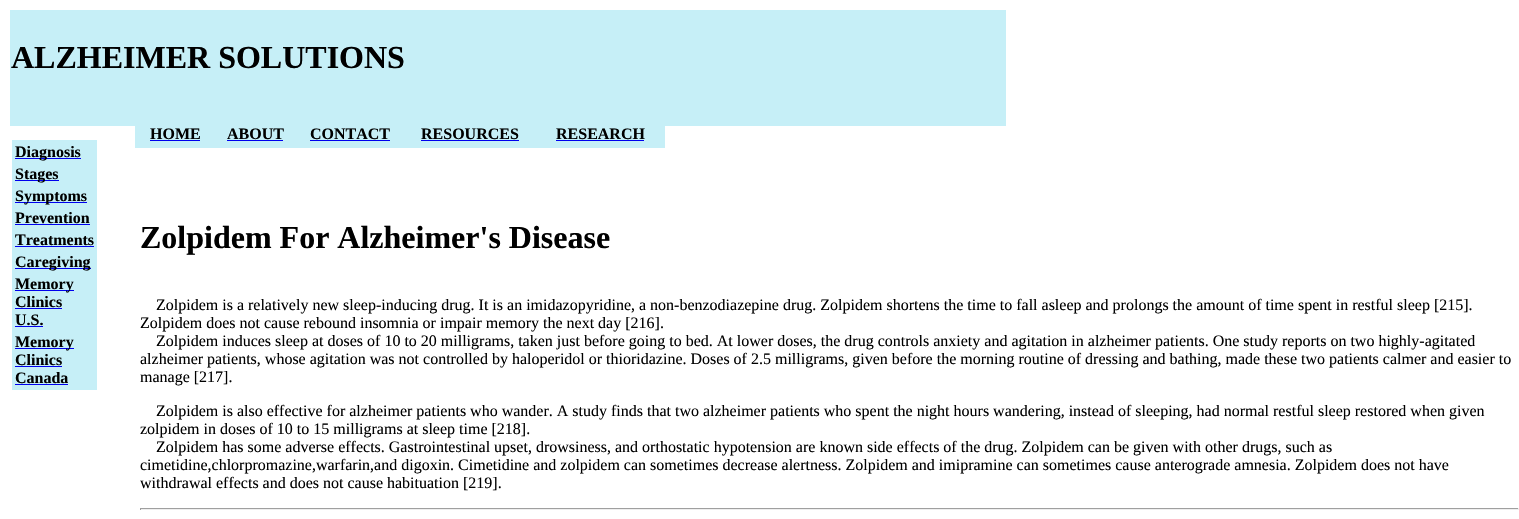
#include "include/core/SkBlurTypes.h"
#include "include/core/SkCanvas.h"
#include "include/core/SkData.h"
#include "include/core/SkFont.h"
#include "include/core/SkFontMgr.h"
#include "include/core/SkImage.h"
#include "include/core/SkMaskFilter.h"
#include "include/core/SkPaint.h"
#include "include/core/SkPathBuilder.h"
#include "include/core/SkTextBlob.h"
#include "include/effects/SkDashPathEffect.h"
#include "include/effects/SkGradientShader.h"
#include "include/utils/SkParsePath.h"

extern sk_sp<SkFontMgr> fontMgr;

void draw(SkCanvas* canvas) {
    SkPaint p;
    p.setAntiAlias(true);
    auto font = [&](const char* family, int weight, float size, bool italic = false) {
        SkFontStyle style(weight, SkFontStyle::kNormal_Width,
            italic ? SkFontStyle::kItalic_Slant : SkFontStyle::kUpright_Slant);
        SkFont result(fontMgr->matchFamilyStyle(family, style), size);
        result.setSubpixel(true);
        return result;
    };
    canvas->clear(0xFFFFFFFF);
    p.setColor(0xFFC6EFF7);
    canvas->drawRect(SkRect::MakeLTRB(10, 10, 1006, 126), p);
    auto font1 = font("Liberation Serif", 700, 32);
    p.setColor(0xFF000000);
    canvas->drawString("ALZHEIMER SOLUTIONS", 11, 68, font1, p);
    p.setColor(0xFFC6EFF7);
    canvas->drawRect(SkRect::MakeLTRB(135, 126, 665, 148), p);
    auto font2 = font("Liberation Serif", 700, 16);
    p.setColor(0xFF000000);
    canvas->drawString("HOME", 150, 139, font2, p);
    p.setColor(0xFF0000EE);
    canvas->drawRect(SkRect::MakeLTRB(150, 140, 200, 141), p);
    p.setColor(0xFF000000);
    canvas->drawString("ABOUT", 227, 139, font2, p);
    p.setColor(0xFF0000EE);
    canvas->drawRect(SkRect::MakeLTRB(227, 140, 283, 141), p);
    p.setColor(0xFF000000);
    canvas->drawString("CONTACT", 310, 139, font2, p);
    p.setColor(0xFF0000EE);
    canvas->drawRect(SkRect::MakeLTRB(310, 140, 390, 141), p);
    p.setColor(0xFF000000);
    canvas->drawString("RESOURCES", 421, 139, font2, p);
    p.setColor(0xFF0000EE);
    canvas->drawRect(SkRect::MakeLTRB(421, 140, 519, 141), p);
    p.setColor(0xFF000000);
    canvas->drawString("RESEARCH", 556, 139, font2, p);
    {
        const struct { float l, t, r, b; SkColor color; } items[] = {
            {556, 140, 644, 141, 0xFF0000EE},
            {12, 140, 97, 390, 0xFFC6EFF7},
            {15, 158, 81, 159, 0xFF0000EE},
        };
        for (auto [l, t, r, b, color] : items) {
            p.setColor(color);
            canvas->drawRect(SkRect::MakeLTRB(l, t, r, b), p);
        }
    }
    p.setColor(0xFF000000);
    canvas->drawString("Diagnosis", 15, 157, font2, p);
    p.setColor(0xFF0000EE);
    canvas->drawRect(SkRect::MakeLTRB(15, 180, 59, 181), p);
    p.setColor(0xFF000000);
    canvas->drawString("Stages", 15, 179, font2, p);
    p.setColor(0xFF0000EE);
    canvas->drawRect(SkRect::MakeLTRB(15, 202, 87, 203), p);
    p.setColor(0xFF000000);
    canvas->drawString("Symptoms", 15, 201, font2, p);
    canvas->drawString("Prevention", 15, 223, font2, p);
    p.setColor(0xFF0000EE);
    canvas->drawRect(SkRect::MakeLTRB(15, 224, 90, 225), p);
    p.setColor(0xFF000000);
    canvas->drawString("Treatments", 15, 245, font2, p);
    p.setColor(0xFF0000EE);
    canvas->drawRect(SkRect::MakeLTRB(15, 246, 94, 247), p);
    canvas->drawRect(SkRect::MakeLTRB(15, 268, 91, 269), p);
    p.setColor(0xFF000000);
    canvas->drawString("Caregiving", 15, 267, font2, p);
    p.setColor(0xFF0000EE);
    canvas->drawRect(SkRect::MakeLTRB(15, 290, 74, 291), p);
    p.setColor(0xFF000000);
    canvas->drawString("Memory", 15, 289, font2, p);
    canvas->drawString("Clinics", 15, 307, font2, p);
    p.setColor(0xFF0000EE);
    canvas->drawRect(SkRect::MakeLTRB(15, 308, 62, 309), p);
    p.setColor(0xFF000000);
    canvas->drawString("U.S.", 15, 325, font2, p);
    p.setColor(0xFF0000EE);
    canvas->drawRect(SkRect::MakeLTRB(15, 326, 43, 327), p);
    canvas->drawRect(SkRect::MakeLTRB(15, 348, 74, 349), p);
    p.setColor(0xFF000000);
    canvas->drawString("Memory", 15, 347, font2, p);
    canvas->drawString("Clinics", 15, 365, font2, p);
    p.setColor(0xFF0000EE);
    canvas->drawRect(SkRect::MakeLTRB(15, 366, 62, 367), p);
    p.setColor(0xFF000000);
    canvas->drawString("Canada", 15, 383, font2, p);
    p.setColor(0xFF0000EE);
    canvas->drawRect(SkRect::MakeLTRB(15, 384, 68, 385), p);
    p.setColor(0xFF000000);
    canvas->drawString("Zolpidem For Alzheimer's Disease", 140, 248, font1, p);
    auto font3 = font("Liberation Serif", 400, 16);
    {
        const struct { const char* s; float x, y; } items[] = {
            {"Zolpidem is a relatively new sleep-inducing drug. It is an imidazopyridine, a non-benzodiazepine drug. Zolpidem shortens the time to fall asleep and prolongs the amount of time spent in restful sleep [215].", 156, 310},
            {"Zolpidem does not cause rebound insomnia or impair memory the next day [216].", 140, 328},
            {"Zolpidem induces sleep at doses of 10 to 20 milligrams, taken just before going to bed. At lower doses, the drug controls anxiety and agitation in alzheimer patients. One study reports on two highly-agitated", 156, 346},
            {"alzheimer patients, whose agitation was not controlled by haloperidol or thioridazine. Doses of 2.5 milligrams, given before the morning routine of dressing and bathing, made these two patients calmer and easier to", 140, 364},
            {"manage [217].", 140, 382},
            {"Zolpidem is also effective for alzheimer patients who wander. A study finds that two alzheimer patients who spent the night hours wandering, instead of sleeping, had normal restful sleep restored when given", 156, 416},
            {"zolpidem in doses of 10 to 15 milligrams at sleep time [218].", 140, 434},
            {"Zolpidem has some adverse effects. Gastrointestinal upset, drowsiness, and orthostatic hypotension are known side effects of the drug. Zolpidem can be given with other drugs, such as", 156, 452},
            {"cimetidine,chlorpromazine,warfarin,and digoxin. Cimetidine and zolpidem can sometimes decrease alertness. Zolpidem and imipramine can sometimes cause anterograde amnesia. Zolpidem does not have", 140, 470},
            {"withdrawal effects and does not cause habituation [219].", 140, 488},
        };
        for (auto [s, x, y] : items) {
            canvas->drawString(s, x, y, font3, p);
        }
    }
    {
        const struct { float l, t, r, b; SkColor color; } items[] = {
            {140, 508, 1519, 509, 0xFF9F9F9F},
            {1518, 508, 1519, 510, 0xFFEEEEEE},
            {140, 509, 1519, 510, 0xFFEEEEEE},
            {140, 508, 141, 510, 0xFF9F9F9F},
        };
        for (auto [l, t, r, b, color] : items) {
            p.setColor(color);
            canvas->drawRect(SkRect::MakeLTRB(l, t, r, b), p);
        }
    }
}
